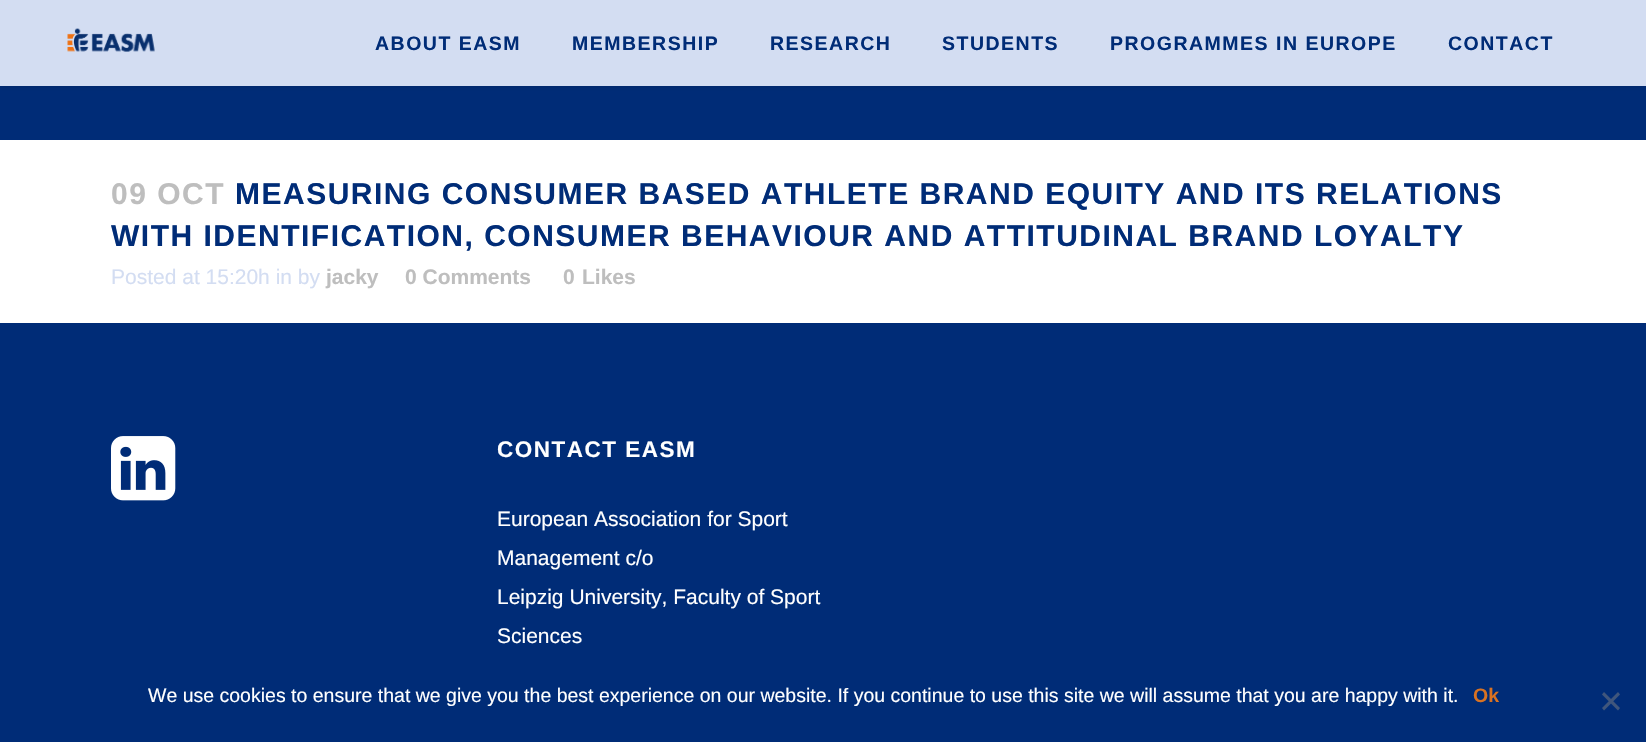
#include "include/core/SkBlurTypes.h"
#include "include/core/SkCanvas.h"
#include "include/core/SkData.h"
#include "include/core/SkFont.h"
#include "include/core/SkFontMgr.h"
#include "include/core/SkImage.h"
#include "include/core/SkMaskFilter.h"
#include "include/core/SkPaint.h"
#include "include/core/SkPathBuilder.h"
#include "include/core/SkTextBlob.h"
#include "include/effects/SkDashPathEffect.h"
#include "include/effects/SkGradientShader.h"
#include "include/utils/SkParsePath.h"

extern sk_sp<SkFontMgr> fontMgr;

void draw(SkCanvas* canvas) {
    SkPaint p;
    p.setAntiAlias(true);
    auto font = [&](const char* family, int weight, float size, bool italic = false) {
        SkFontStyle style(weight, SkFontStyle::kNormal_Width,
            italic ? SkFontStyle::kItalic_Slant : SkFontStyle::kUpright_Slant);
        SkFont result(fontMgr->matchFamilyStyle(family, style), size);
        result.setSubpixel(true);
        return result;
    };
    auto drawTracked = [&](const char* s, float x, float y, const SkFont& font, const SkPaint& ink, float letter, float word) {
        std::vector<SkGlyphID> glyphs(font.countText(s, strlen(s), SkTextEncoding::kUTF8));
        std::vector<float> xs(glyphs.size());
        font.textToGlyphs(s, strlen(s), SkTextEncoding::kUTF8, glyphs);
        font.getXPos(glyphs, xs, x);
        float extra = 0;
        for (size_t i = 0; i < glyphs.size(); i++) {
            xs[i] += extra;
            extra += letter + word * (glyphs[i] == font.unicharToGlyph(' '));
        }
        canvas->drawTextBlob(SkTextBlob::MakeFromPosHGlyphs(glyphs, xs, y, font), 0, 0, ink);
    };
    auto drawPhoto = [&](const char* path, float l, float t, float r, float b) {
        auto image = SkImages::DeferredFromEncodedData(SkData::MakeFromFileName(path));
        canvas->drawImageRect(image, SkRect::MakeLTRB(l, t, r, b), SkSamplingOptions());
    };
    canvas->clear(0xFFFFFFFF);
    p.setColor(0xFF002C77);
    canvas->drawRect(SkRect::MakeLTRB(0, 86, 1646, 140), p);
    p.setColor(0x1C000000);
    p.setMaskFilter(SkMaskFilter::MakeBlur(kNormal_SkBlurStyle, 2));
    canvas->drawRect(SkRect::MakeLTRB(0, 2, 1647, 87), p);
    p.setMaskFilter(nullptr);
    p.setColor(0xFFD3DDF2);
    canvas->drawRect(SkRect::MakeLTRB(0, 0, 1646, 86), p);
    drawPhoto("media/1.png", 67, 28, 155, 52);
    auto font1 = font("Liberation Sans", 700, 19.5f);
    p.setColor(0xFF002C77);
    {
        const struct { const char* s; float x, y; } items[] = {
            {"ABOUT EASM", 375, 50},
            {"MEMBERSHIP", 572, 50},
            {"RESEARCH", 770, 50},
            {"STUDENTS", 942, 50},
            {"PROGRAMMES IN EUROPE", 1110, 50},
            {"CONTACT", 1448, 50},
        };
        for (auto [s, x, y] : items) {
            drawTracked(s, x, y, font1, p, 1.5f, 0);
        }
    }
    auto font2 = font("Liberation Sans", 700, 30);
    p.setColor(0xFFBEBEBE);
    drawTracked("09 OCT", 111, 204, font2, p, 1.5f, 0);
    p.setColor(0xFF002C77);
    drawTracked("MEASURING CONSUMER BASED ATHLETE BRAND EQUITY AND ITS RELATIONS", 235, 204, font2, p, 1.5f, 0);
    drawTracked("WITH IDENTIFICATION, CONSUMER BEHAVIOUR AND ATTITUDINAL BRAND LOYALTY", 111, 246, font2, p, 1.5f, 0);
    auto font3 = font("Liberation Sans", 400, 21);
    p.setColor(0xFFD3DDF2);
    canvas->drawString("Posted at 15:20h in by", 111, 284, font3, p);
    auto font4 = font("Liberation Sans", 700, 21);
    p.setColor(0xFFBEBEBE);
    {
        const struct { const char* s; float x, y; } items[] = {
            {"jacky", 326, 284},
            {"0 Comments", 405, 284},
            {"0", 563, 284},
            {"Likes", 582, 284},
        };
        for (auto [s, x, y] : items) {
            canvas->drawString(s, x, y, font4, p);
        }
    }
    p.setColor(0xFF002C77);
    canvas->drawRect(SkRect::MakeLTRB(0, 323, 1646, 742), p);
    drawPhoto("media/2.png", 111, 436, 176, 501);
    auto font5 = font("Liberation Sans", 700, 22.5f);
    p.setColor(0xFFFFFFFF);
    drawTracked("CONTACT EASM", 497, 457, font5, p, 1.5f, 0);
    {
        const struct { const char* s; float x, y; } items[] = {
            {"European Association for Sport", 497, 526},
            {"Management c/o", 497, 565},
            {"Leipzig University, Faculty of Sport", 497, 604},
            {"Sciences", 497, 643},
        };
        for (auto [s, x, y] : items) {
            canvas->drawString(s, x, y, font3, p);
        }
    }
    auto font6 = font("Liberation Sans", 400, 19.5f);
    canvas->drawString("We use cookies to ensure that we give you the best experience on our website. If you continue to use this site we will assume that you are happy with it.", 148, 702, font6, p);
    p.setColor(0xFFD97222);
    canvas->drawString("Ok", 1473, 702, font1, p);
    p.setColor(0xFF40567C);
    canvas->drawPath(SkPathBuilder().moveTo(1618, 692).lineTo(1620, 694.5f).lineTo(1604, 710.5f).lineTo(1602, 708).close().detach(), p);
    canvas->drawPath(SkPathBuilder().moveTo(1602, 694.5f).lineTo(1604, 692).lineTo(1620, 708).lineTo(1618, 710.5f).close().detach(), p);
}
